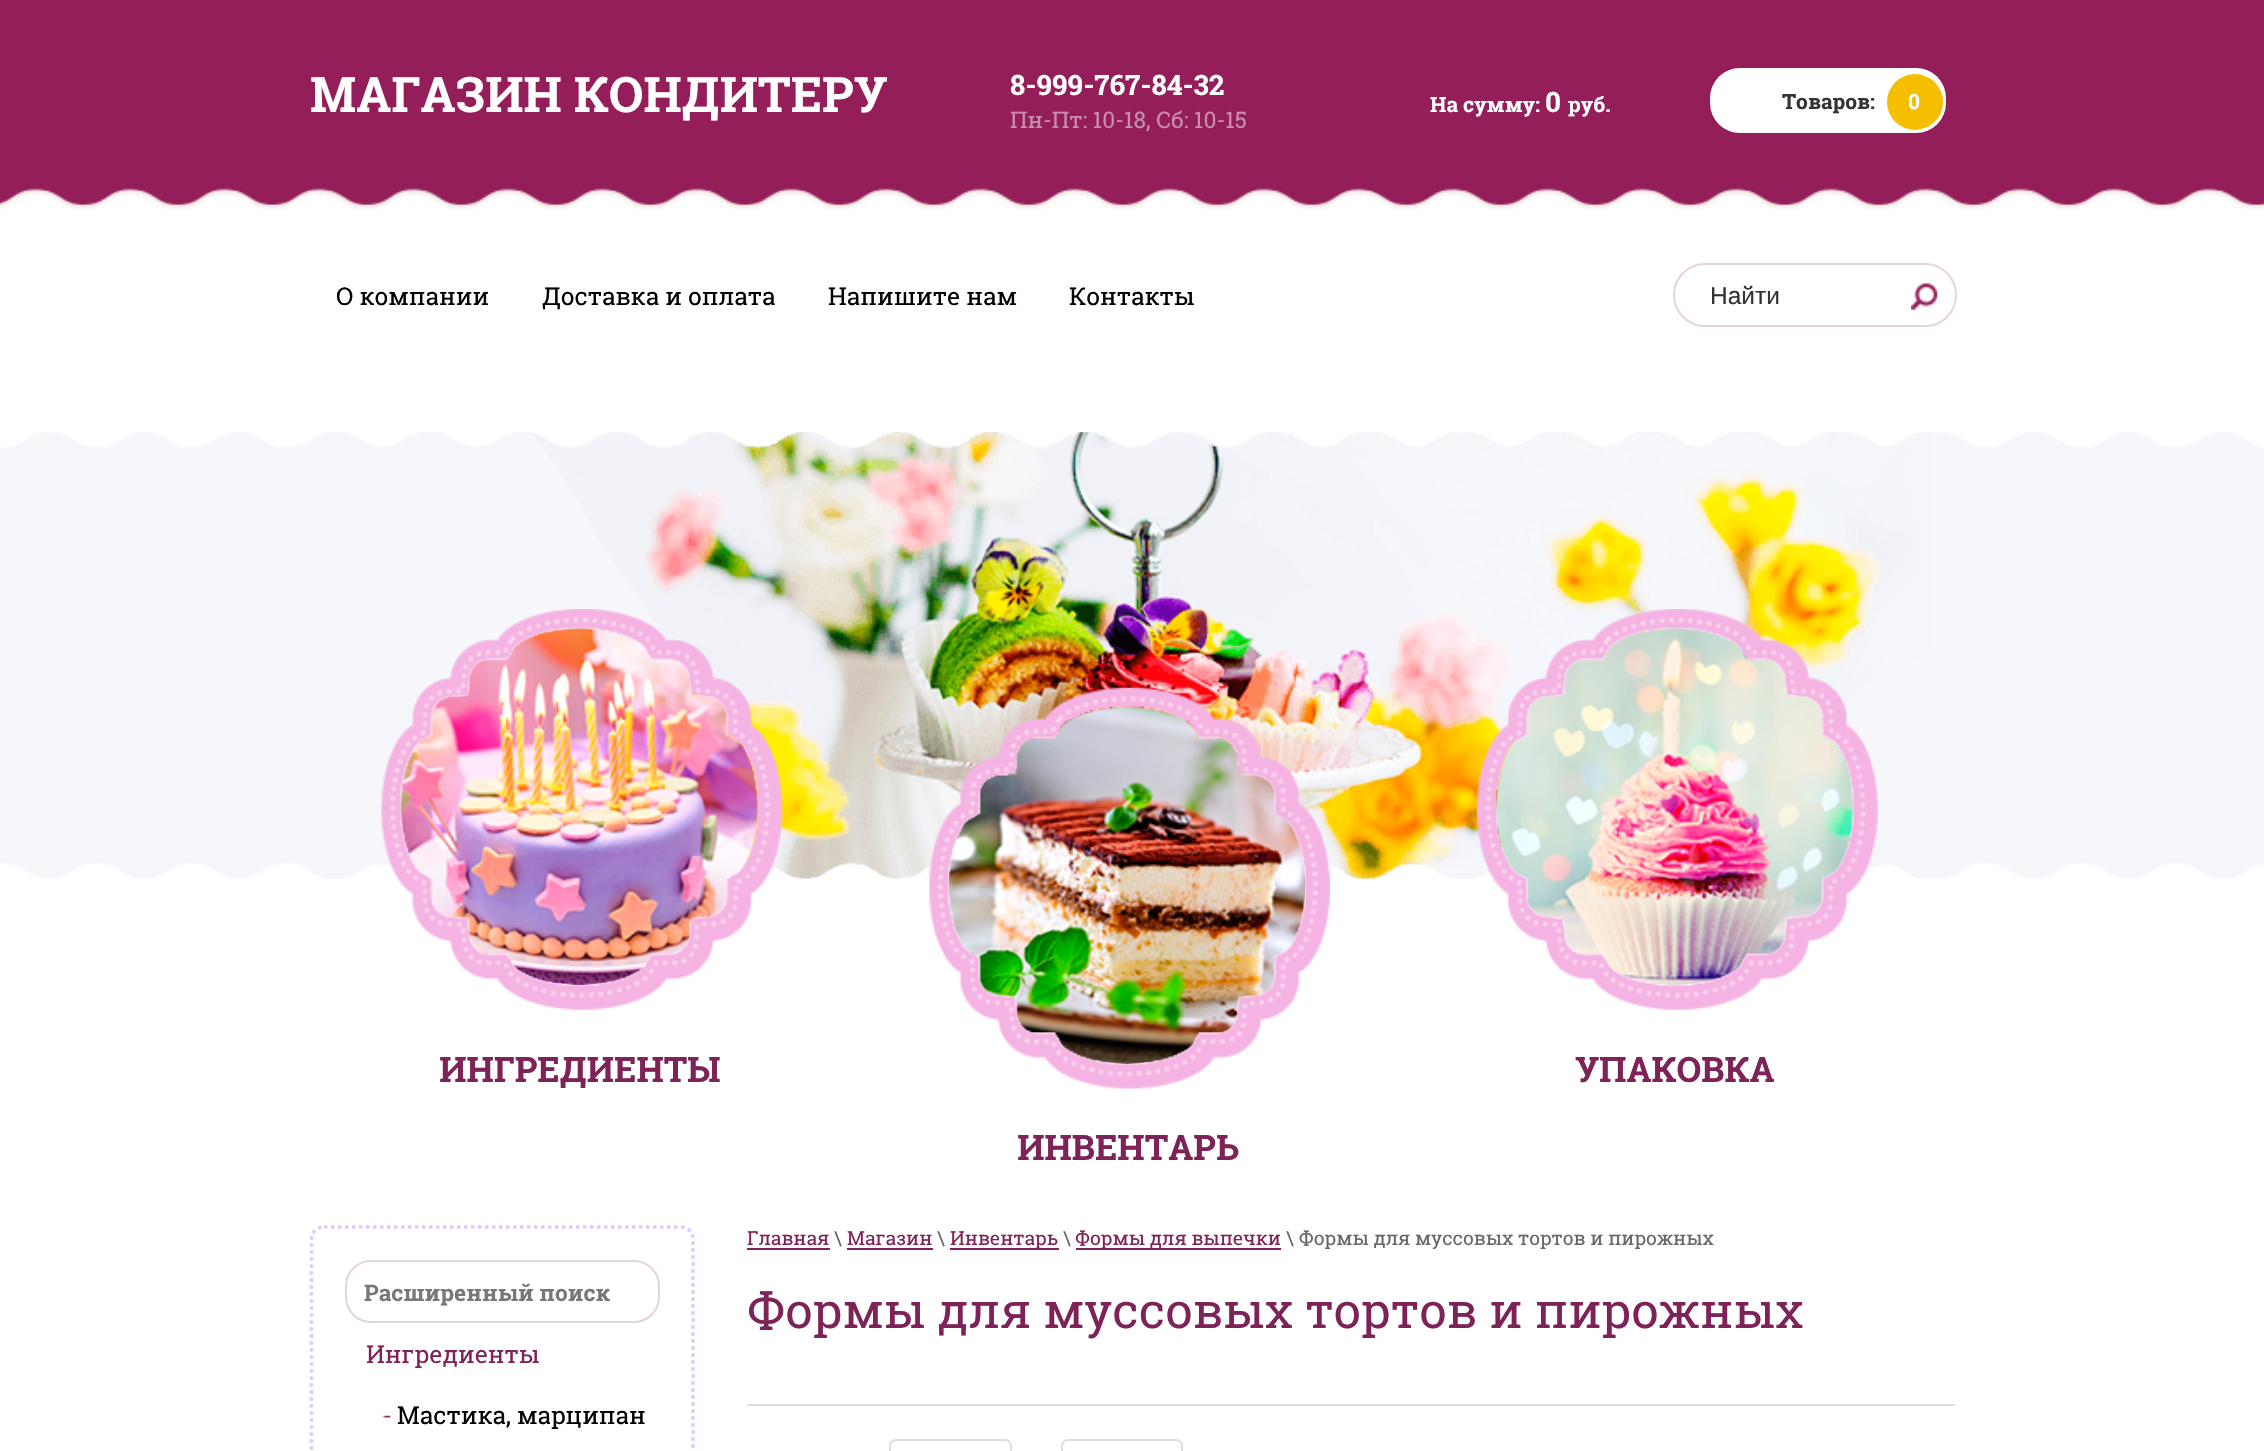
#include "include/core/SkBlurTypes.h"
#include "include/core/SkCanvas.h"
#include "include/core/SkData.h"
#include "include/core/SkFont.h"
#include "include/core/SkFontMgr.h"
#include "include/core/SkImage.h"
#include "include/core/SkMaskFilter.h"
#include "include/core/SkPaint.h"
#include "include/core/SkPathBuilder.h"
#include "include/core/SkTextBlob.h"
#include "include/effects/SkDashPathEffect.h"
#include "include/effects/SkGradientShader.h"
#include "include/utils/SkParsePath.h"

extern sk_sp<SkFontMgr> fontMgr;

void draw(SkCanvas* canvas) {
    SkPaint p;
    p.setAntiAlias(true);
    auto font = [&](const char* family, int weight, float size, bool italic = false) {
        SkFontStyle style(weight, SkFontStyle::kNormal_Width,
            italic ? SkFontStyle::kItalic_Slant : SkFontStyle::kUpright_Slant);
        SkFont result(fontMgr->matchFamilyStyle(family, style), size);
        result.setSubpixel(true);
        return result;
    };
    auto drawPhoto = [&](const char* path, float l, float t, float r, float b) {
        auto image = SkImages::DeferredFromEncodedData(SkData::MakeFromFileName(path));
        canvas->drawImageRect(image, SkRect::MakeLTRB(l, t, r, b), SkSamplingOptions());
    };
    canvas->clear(0xFFFFFFFF);
    drawPhoto("media/1.png", 0, 0, 2264, 210);
    auto font1 = font("Roboto Slab", 700, 49);
    p.setColor(0xFFFFFFFF);
    canvas->drawString("МАГАЗИН КОНДИТЕРУ", 310, 112, font1, p);
    auto font2 = font("Roboto Slab", 700, 28);
    canvas->drawString("8-999-767-84-32", 1010, 95, font2, p);
    auto font3 = font("Roboto Slab", 400, 22.75f);
    p.setColor(0xFFCA8EAC);
    canvas->drawString("Пн-Пт: 10-18, Сб: 10-15", 1010, 128, font3, p);
    auto font4 = font("Roboto Slab", 700, 21);
    p.setColor(0xFFFFFFFF);
    canvas->drawString("На сумму:", 1430, 112, font4, p);
    canvas->drawString("0", 1545, 112, font2, p);
    canvas->drawString("руб.", 1568, 112, font4, p);
    canvas->drawRoundRect(SkRect::MakeLTRB(1710, 68, 1946, 133), 30, 30, p);
    p.setColor(0xFF333333);
    canvas->drawString("Товаров:", 1782, 109, font4, p);
    p.setColor(0xFFF5BF00);
    canvas->drawCircle(1915, 102, 28, p);
    p.setColor(0xFFFFFFFF);
    canvas->drawString("0", 1908, 109, font4, p);
    auto font5 = font("Roboto Slab", 400, 24.5f);
    p.setColor(0xFF000000);
    {
        const struct { const char* s; float x, y; } items[] = {
            {"О компании", 336, 305},
            {"Доставка и оплата", 542, 305},
            {"Напишите нам", 828, 305},
            {"Контакты", 1069, 305},
        };
        for (auto [s, x, y] : items) {
            canvas->drawString(s, x, y, font5, p);
        }
    }
    p.setStyle(SkPaint::kStroke_Style);
    p.setStrokeWidth(2);
    p.setColor(0xFFE5D3DE);
    canvas->drawRoundRect(SkRect::MakeLTRB(1674, 264, 1956, 326), 31, 31, p);
    auto font6 = font("Liberation Sans", 400, 24.5f);
    p.setStyle(SkPaint::kFill_Style);
    p.setColor(0xFF333333);
    canvas->drawString("Найти", 1710, 304, font6, p);
    drawPhoto("media/2.png", 1911, 283, 1938, 310);
    drawPhoto("media/3.png", 0, 432, 2264, 879);
    drawPhoto("media/4.png", 325, 432, 1933, 879);
    drawPhoto("media/6.png", 400, 628, 758, 986);
    drawPhoto("media/5.png", 381, 609, 783, 1010);
    auto font7 = font("Roboto Slab", 700, 35);
    p.setColor(0xFF7E2358);
    canvas->drawString("ИНГРЕДИЕНТЫ", 439, 1082, font7, p);
    drawPhoto("media/8.png", 1496, 628, 1853, 985);
    drawPhoto("media/7.png", 1477, 609, 1878, 1010);
    canvas->drawString("УПАКОВКА", 1575, 1082, font7, p);
    drawPhoto("media/10.png", 948, 707, 1306, 1064);
    drawPhoto("media/9.png", 929, 687, 1330, 1089);
    canvas->drawString("ИНВЕНТАРЬ", 1017, 1160, font7, p);
    p.setStyle(SkPaint::kStroke_Style);
    p.setStrokeWidth(3.5f);
    p.setColor(0xFFE1C9F9);
    p.setPathEffect(SkDashPathEffect::Make({{3.5f, 3.5f}}, 0));
    canvas->drawPath(SkPathBuilder().moveTo(324, 1227).lineTo(681, 1227).cubicTo(687.5f, 1227, 693, 1232, 693, 1239).lineTo(693, 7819).cubicTo(693, 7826, 687.5f, 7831, 681, 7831).lineTo(324, 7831).cubicTo(317, 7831, 311.5f, 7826, 311.5f, 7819).lineTo(311.5f, 1239).cubicTo(311.5f, 1232, 317, 1227, 324, 1227).close().detach(), p);
    p.setPathEffect(nullptr);
    p.setStrokeWidth(2);
    p.setColor(0xFFE5D3DE);
    canvas->drawRoundRect(SkRect::MakeLTRB(346, 1261, 659, 1322), 25, 25, p);
    auto font8 = font("Roboto Slab", 700, 22.75f);
    p.setStyle(SkPaint::kFill_Style);
    p.setColor(0xFF787878);
    canvas->drawString("Расширенный поиск", 364, 1301, font8, p);
    p.setColor(0xFF7E2358);
    canvas->drawString("Ингредиенты", 366, 1363, font5, p);
    drawPhoto("media/11.png", 383, 1415, 391, 1418);
    p.setColor(0xFF000000);
    canvas->drawString("Мастика, марципан", 397, 1424, font5, p);
    auto font9 = font("Roboto Slab", 400, 19.25f);
    p.setColor(0xFF7E2358);
    canvas->drawString("Главная", 747, 1245, font9, p);
    canvas->drawRect(SkRect::MakeLTRB(747, 1248, 830, 1250), p);
    p.setColor(0xFF666666);
    canvas->drawString("\\", 834, 1245, font9, p);
    p.setColor(0xFF7E2358);
    canvas->drawString("Магазин", 847, 1245, font9, p);
    canvas->drawRect(SkRect::MakeLTRB(847, 1248, 933, 1250), p);
    p.setColor(0xFF666666);
    canvas->drawString("\\", 937, 1245, font9, p);
    p.setColor(0xFF7E2358);
    canvas->drawRect(SkRect::MakeLTRB(950, 1248, 1059, 1250), p);
    canvas->drawString("Инвентарь", 950, 1245, font9, p);
    p.setColor(0xFF666666);
    canvas->drawString("\\", 1063, 1245, font9, p);
    p.setColor(0xFF7E2358);
    canvas->drawRect(SkRect::MakeLTRB(1076, 1248, 1281, 1250), p);
    canvas->drawString("Формы для выпечки", 1075, 1245, font9, p);
    p.setColor(0xFF666666);
    canvas->drawString("\\ Формы для муссовых тортов и пирожных", 1286, 1245, font9, p);
    auto font10 = font("Roboto Slab", 400, 49);
    p.setColor(0xFF7E2358);
    canvas->drawString("Формы для муссовых тортов и пирожных", 747, 1328, font10, p);
    p.setColor(0xFFDEDEDE);
    canvas->drawRect(SkRect::MakeLTRB(747, 1404, 1955, 1406), p);
    p.setStyle(SkPaint::kStroke_Style);
    canvas->drawRoundRect(SkRect::MakeLTRB(890, 1440, 1011, 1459), 6, 6, p);
    canvas->drawRoundRect(SkRect::MakeLTRB(1062, 1440, 1182, 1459), 6, 6, p);
}
